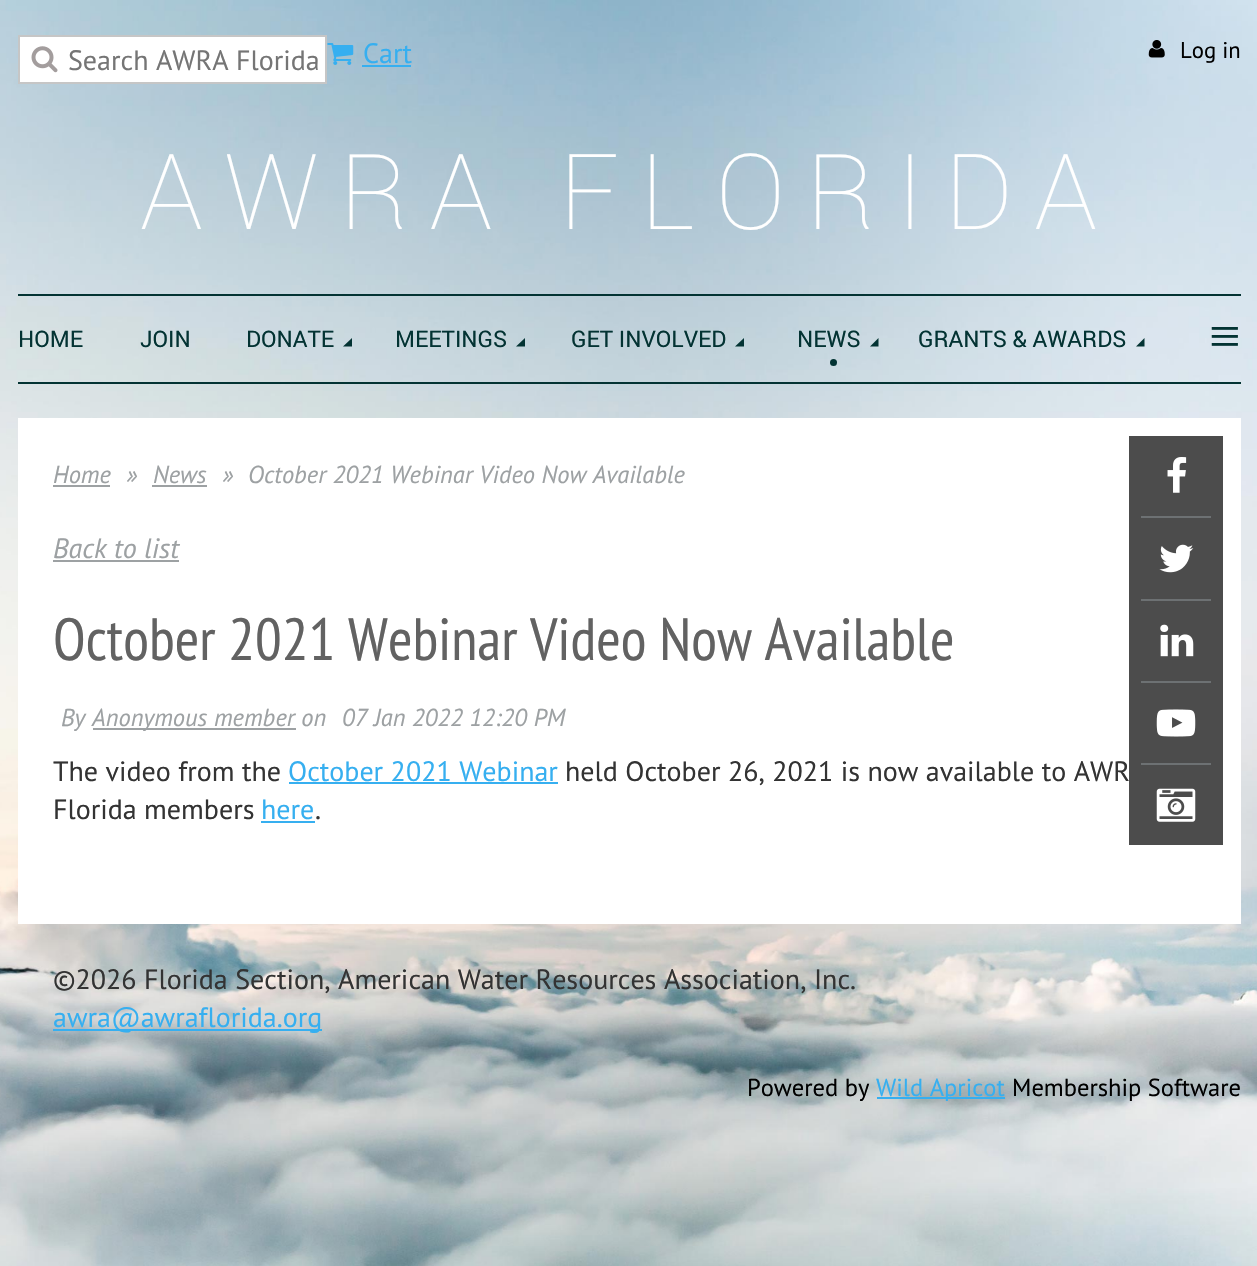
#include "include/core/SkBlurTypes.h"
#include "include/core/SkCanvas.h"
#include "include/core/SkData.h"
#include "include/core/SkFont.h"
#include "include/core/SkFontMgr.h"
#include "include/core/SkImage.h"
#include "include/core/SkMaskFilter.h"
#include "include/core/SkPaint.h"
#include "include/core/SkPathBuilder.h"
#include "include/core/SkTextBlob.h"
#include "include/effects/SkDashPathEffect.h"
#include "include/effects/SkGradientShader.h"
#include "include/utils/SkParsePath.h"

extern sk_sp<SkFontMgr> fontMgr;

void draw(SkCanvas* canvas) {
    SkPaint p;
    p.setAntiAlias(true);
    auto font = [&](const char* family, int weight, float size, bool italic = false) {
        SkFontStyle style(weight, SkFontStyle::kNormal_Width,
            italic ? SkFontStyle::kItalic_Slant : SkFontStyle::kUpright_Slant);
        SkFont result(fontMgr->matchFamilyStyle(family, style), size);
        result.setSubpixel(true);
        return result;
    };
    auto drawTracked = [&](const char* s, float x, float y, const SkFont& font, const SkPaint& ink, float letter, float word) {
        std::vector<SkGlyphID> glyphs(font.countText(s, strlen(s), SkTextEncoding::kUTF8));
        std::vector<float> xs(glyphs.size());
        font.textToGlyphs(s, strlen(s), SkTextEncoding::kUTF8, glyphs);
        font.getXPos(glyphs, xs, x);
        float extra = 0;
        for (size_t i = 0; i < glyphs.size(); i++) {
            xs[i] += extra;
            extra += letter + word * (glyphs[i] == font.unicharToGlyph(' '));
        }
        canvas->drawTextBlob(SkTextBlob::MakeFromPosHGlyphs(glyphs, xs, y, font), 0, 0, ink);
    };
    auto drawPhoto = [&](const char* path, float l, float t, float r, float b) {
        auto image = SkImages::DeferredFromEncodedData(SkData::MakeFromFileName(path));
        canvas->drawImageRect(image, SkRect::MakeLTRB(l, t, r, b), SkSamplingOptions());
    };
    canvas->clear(0xFFFFFFFF);
    drawPhoto("media/1.png", 0, 0, 1257, 1266);
    p.setColor(0xFFFFFFFF);
    canvas->drawRect(SkRect::MakeLTRB(19, 36, 326, 83), p);
    p.setStyle(SkPaint::kStroke_Style);
    p.setStrokeWidth(2);
    p.setColor(0xFFC6C6C6);
    canvas->drawRect(SkRect::MakeLTRB(19, 36, 326, 83), p);
    drawPhoto("media/2.png", 31, 46, 58, 73);
    auto font1 = font("PT Sans", 400, 28);
    p.setStyle(SkPaint::kFill_Style);
    p.setColor(0xFF757575);
    canvas->drawString("Search AWRA Florida", 68, 70, font1, p);
    drawPhoto("media/3.png", 327, 43, 354, 65);
    p.setColor(0xFF36AFF0);
    canvas->drawString("Cart", 363, 63, font1, p);
    canvas->drawRect(SkRect::MakeLTRB(362, 65, 411, 67), p);
    drawPhoto("media/4.png", 1148, 40, 1165, 58);
    auto font2 = font("PT Sans", 400, 22.75f);
    p.setColor(0xFF000000);
    canvas->drawString("Log in", 1180, 58, font2, p);
    auto font3 = font("Roboto", 200, 105);
    p.setColor(0xFFFFFFFF);
    drawTracked("AWRA FLORIDA", 140, 229, font3, p, 21, 0);
    p.setColor(0xFF033333);
    canvas->drawRect(SkRect::MakeLTRB(18, 294, 1241, 296), p);
    canvas->drawRect(SkRect::MakeLTRB(18, 382, 1241, 384), p);
    auto font4 = font("Roboto", 400, 22.75f);
    {
        const struct { const char* s; float x, y; } items[] = {
            {"HOME", 18, 347},
            {"JOIN", 140, 347},
            {"DONATE", 246, 347},
        };
        for (auto [s, x, y] : items) {
            canvas->drawString(s, x, y, font4, p);
        }
    }
    canvas->drawPath(SkPathBuilder().moveTo(352, 346.5f).lineTo(343, 346.5f).lineTo(352, 338).close().detach(), p);
    canvas->drawString("MEETINGS", 395, 347, font4, p);
    canvas->drawPath(SkPathBuilder().moveTo(525, 346.5f).lineTo(516, 346.5f).lineTo(525, 338).close().detach(), p);
    canvas->drawString("GET INVOLVED", 571, 347, font4, p);
    canvas->drawPath(SkPathBuilder().moveTo(744, 346.5f).lineTo(735, 346.5f).lineTo(744, 338).close().detach(), p);
    canvas->drawString("NEWS", 797, 347, font4, p);
    canvas->drawCircle(833.5f, 362.5f, 3.5f, p);
    canvas->drawPath(SkPathBuilder().moveTo(878.5f, 346.5f).lineTo(870, 346.5f).lineTo(878.5f, 338).close().detach(), p);
    canvas->drawString("GRANTS & AWARDS", 918, 347, font4, p);
    canvas->drawPath(SkPathBuilder().moveTo(1144.5f, 346.5f).lineTo(1136, 346.5f).lineTo(1144.5f, 338).close().detach(), p);
    auto font5 = font("Liberation Serif", 400, 56);
    canvas->drawString("≡", 1209, 355, font5, p);
    p.setColor(0xFFFFFFFF);
    canvas->drawRect(SkRect::MakeLTRB(18, 418, 1241, 924), p);
    auto font6 = font("PT Sans", 400, 24.5f, true);
    p.setColor(0xFF9DA1A3);
    canvas->drawString("Home", 53, 483, font6, p);
    canvas->drawRect(SkRect::MakeLTRB(53, 485, 110, 487), p);
    canvas->drawString("»", 126, 483, font6, p);
    canvas->drawString("News", 153, 483, font6, p);
    canvas->drawRect(SkRect::MakeLTRB(152, 485, 207, 487), p);
    canvas->drawString("»", 222, 483, font6, p);
    canvas->drawString("October 2021 Webinar Video Now Available", 248, 483, font6, p);
    auto font7 = font("PT Sans", 400, 28, true);
    canvas->drawString("Back to list", 53, 558, font7, p);
    canvas->drawRect(SkRect::MakeLTRB(53, 560, 179, 562), p);
    auto font8 = font("PT Sans Narrow", 400, 59.5f);
    p.setColor(0xFF626262);
    canvas->drawString("October 2021 Webinar Video Now Available", 53, 660, font8, p);
    p.setColor(0xFF9DA1A3);
    canvas->drawString("By", 61, 726, font6, p);
    canvas->drawRect(SkRect::MakeLTRB(93, 728, 296, 730), p);
    canvas->drawString("Anonymous member on", 92, 726, font6, p);
    canvas->drawString("07 Jan 2022 12:20 PM", 342, 726, font6, p);
    p.setColor(0xFF333333);
    canvas->drawString("The video from the", 53, 781, font1, p);
    p.setColor(0xFF36AFF0);
    canvas->drawString("October 2021 Webinar", 288, 781, font1, p);
    canvas->drawRect(SkRect::MakeLTRB(289, 782, 558, 784), p);
    p.setColor(0xFF333333);
    canvas->drawString("held October 26, 2021 is now available to AWR", 565, 781, font1, p);
    canvas->drawString("Florida members", 53, 819, font1, p);
    p.setColor(0xFF36AFF0);
    canvas->drawString("here", 261, 819, font1, p);
    canvas->drawRect(SkRect::MakeLTRB(261, 821, 315, 823), p);
    p.setColor(0xFF333333);
    canvas->drawString(".", 315, 819, font1, p);
    p.setColor(0xB3000000);
    canvas->drawRect(SkRect::MakeLTRB(1129, 436, 1223, 845), p);
    p.setColor(0xFF6D7173);
    canvas->drawRect(SkRect::MakeLTRB(1141, 516, 1211, 518), p);
    drawPhoto("media/5.png", 1167, 457, 1187, 493);
    canvas->drawRect(SkRect::MakeLTRB(1141, 599, 1211, 601), p);
    drawPhoto("media/6.png", 1159, 544, 1194, 573);
    canvas->drawRect(SkRect::MakeLTRB(1141, 681, 1211, 683), p);
    drawPhoto("media/7.png", 1160, 624, 1194, 657);
    canvas->drawRect(SkRect::MakeLTRB(1141, 763, 1211, 765), p);
    drawPhoto("media/8.png", 1156, 709, 1196, 737);
    drawPhoto("media/9.png", 1156, 788, 1196, 822);
    p.setColor(0xFF333333);
    canvas->drawString("©2026 Florida Section, American Water Resources Association, Inc.", 53, 989, font1, p);
    p.setColor(0xFF36AFF0);
    canvas->drawRect(SkRect::MakeLTRB(53, 1029, 322, 1031), p);
    canvas->drawString("awra@awraflorida.org", 53, 1027, font1, p);
    auto font9 = font("PT Sans", 400, 24.5f);
    p.setColor(0xFF000000);
    canvas->drawString("Powered by", 747, 1096, font9, p);
    p.setColor(0xFF36AFF0);
    canvas->drawRect(SkRect::MakeLTRB(877, 1097, 1005, 1099), p);
    canvas->drawString("Wild Apricot", 876, 1096, font9, p);
    p.setColor(0xFF000000);
    canvas->drawString("Membership Software", 1012, 1096, font9, p);
}
